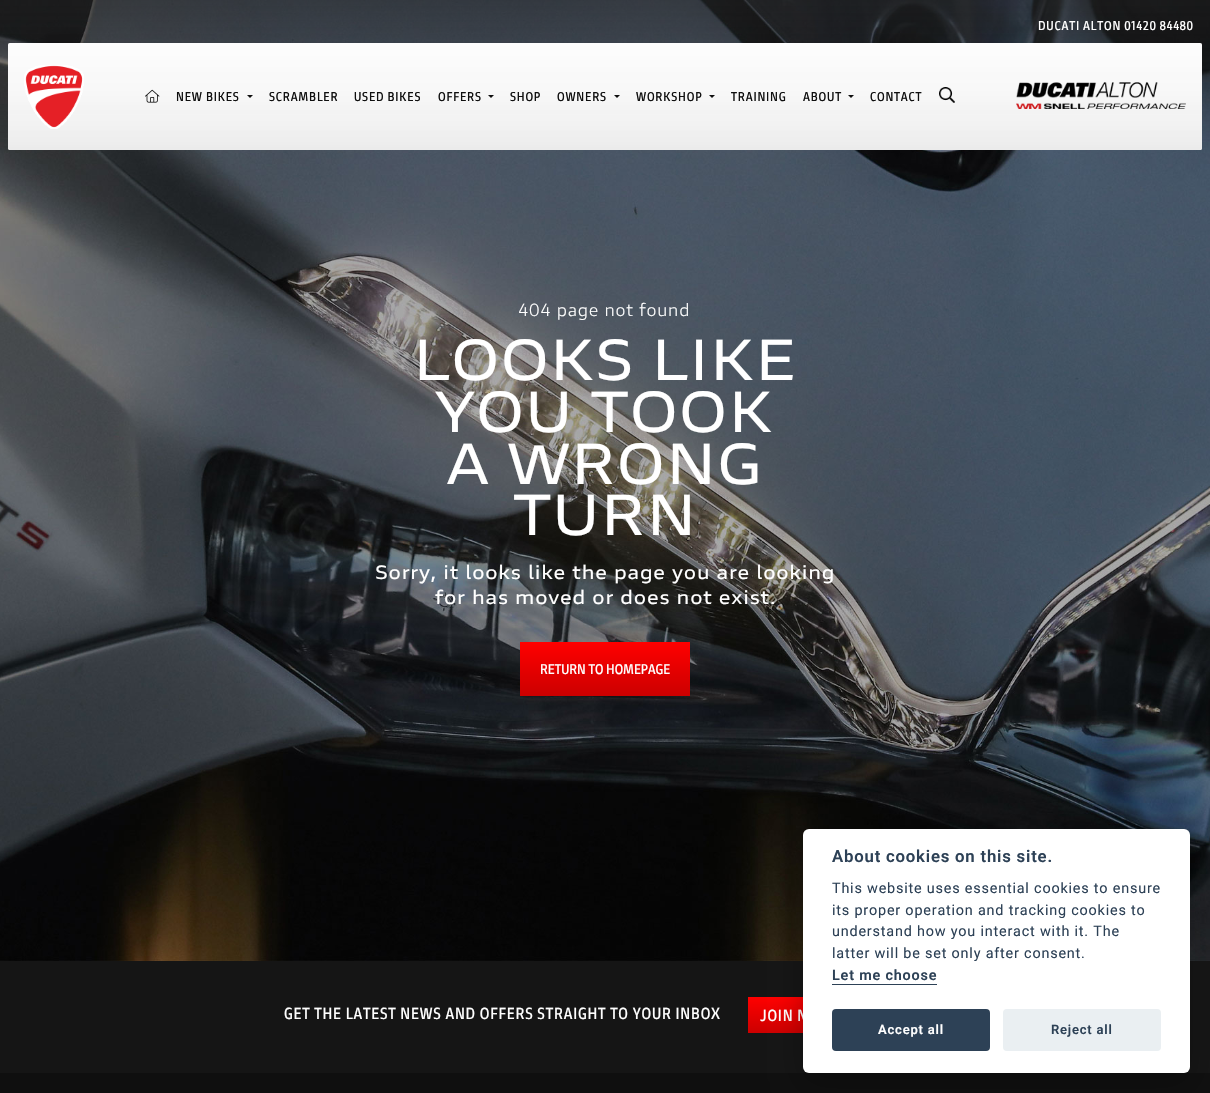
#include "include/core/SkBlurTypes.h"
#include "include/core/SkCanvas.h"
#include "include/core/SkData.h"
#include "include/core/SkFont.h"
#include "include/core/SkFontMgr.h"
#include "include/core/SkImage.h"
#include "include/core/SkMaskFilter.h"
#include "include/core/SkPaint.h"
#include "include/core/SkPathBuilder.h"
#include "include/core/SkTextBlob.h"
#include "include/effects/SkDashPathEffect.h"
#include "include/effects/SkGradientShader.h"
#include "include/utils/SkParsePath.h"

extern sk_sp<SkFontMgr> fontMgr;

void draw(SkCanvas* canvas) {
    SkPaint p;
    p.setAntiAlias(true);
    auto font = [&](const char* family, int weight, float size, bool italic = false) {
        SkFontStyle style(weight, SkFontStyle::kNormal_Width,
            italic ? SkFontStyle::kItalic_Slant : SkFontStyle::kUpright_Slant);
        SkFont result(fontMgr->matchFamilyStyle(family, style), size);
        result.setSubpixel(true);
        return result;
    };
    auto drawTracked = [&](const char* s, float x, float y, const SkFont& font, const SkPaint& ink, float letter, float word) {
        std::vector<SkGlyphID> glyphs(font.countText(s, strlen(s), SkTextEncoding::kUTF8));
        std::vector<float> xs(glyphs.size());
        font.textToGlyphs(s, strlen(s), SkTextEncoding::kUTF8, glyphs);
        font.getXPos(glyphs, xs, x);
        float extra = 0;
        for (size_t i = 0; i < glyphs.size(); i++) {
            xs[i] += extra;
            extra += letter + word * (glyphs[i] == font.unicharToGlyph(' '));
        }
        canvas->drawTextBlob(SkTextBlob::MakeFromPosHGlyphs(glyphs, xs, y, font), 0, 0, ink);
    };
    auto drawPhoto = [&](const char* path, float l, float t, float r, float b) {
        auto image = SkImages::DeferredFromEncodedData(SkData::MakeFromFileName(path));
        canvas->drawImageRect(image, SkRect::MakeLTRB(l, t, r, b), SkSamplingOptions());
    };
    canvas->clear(0xFFFFFFFF);
    drawPhoto("media/5.png", 0, 0, 1210, 961);
    auto font1 = font("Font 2", 700, 12.75f);
    p.setColor(0xFFFFFFFF);
    drawTracked("DUCATI ALTON 01420 84480", 1038, 30, font1, p, 0.8f, 0);
    p.setColor(0xFFFAFAFA);
    canvas->drawRoundRect(SkRect::MakeLTRB(8, 43, 1202, 150), 2, 2, p);
    {
        const SkColor colors[] = {0x80FFFFFF, 0xFFEBEBEB};
        const float stops[] = {0, 1};
        const SkPoint ends[] = {{605, 43}, {605, 150}};
        p.setShader(SkGradientShader::MakeLinear(ends, colors, stops, 2, SkTileMode::kClamp));
        p.setAlpha(255);
    }
    canvas->drawRoundRect(SkRect::MakeLTRB(8, 43, 1202, 150), 2, 2, p);
    drawPhoto("media/1.png", 24, 65, 84, 129);
    drawPhoto("media/2.png", 145, 89, 160, 103);
    p.setShader(nullptr);
    p.setColor(0xFF0F0F0F);
    drawTracked("NEW BIKES", 176, 101, font1, p, 0.8f, 0);
    canvas->drawPath(SkPathBuilder().moveTo(247, 95).lineTo(253, 95).lineTo(250, 98).close().detach(), p);
    {
        const struct { const char* s; float x, y; } items[] = {
            {"SCRAMBLER", 269, 101},
            {"USED BIKES", 354, 101},
            {"OFFERS", 438, 101},
        };
        for (auto [s, x, y] : items) {
            drawTracked(s, x, y, font1, p, 0.8f, 0);
        }
    }
    canvas->drawPath(SkPathBuilder().moveTo(488, 95).lineTo(494, 95).lineTo(491, 98).close().detach(), p);
    drawTracked("SHOP", 510, 101, font1, p, 0.8f, 0);
    drawTracked("OWNERS", 557, 101, font1, p, 0.8f, 0);
    canvas->drawPath(SkPathBuilder().moveTo(614, 95).lineTo(620, 95).lineTo(617, 98).close().detach(), p);
    drawTracked("WORKSHOP", 636, 101, font1, p, 0.8f, 0);
    canvas->drawPath(SkPathBuilder().moveTo(709, 95).lineTo(715, 95).lineTo(712, 98).close().detach(), p);
    drawTracked("TRAINING", 731, 101, font1, p, 0.8f, 0);
    drawTracked("ABOUT", 803, 101, font1, p, 0.8f, 0);
    canvas->drawPath(SkPathBuilder().moveTo(848, 95).lineTo(854, 95).lineTo(851, 98).close().detach(), p);
    drawTracked("CONTACT", 870, 101, font1, p, 0.8f, 0);
    drawPhoto("media/3.png", 939, 87, 955, 103);
    drawPhoto("media/4.png", 1016, 82, 1186, 109);
    auto font2 = font("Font", 400, 17.5f);
    p.setColor(0xFFFFFFFF);
    drawTracked("404 page not found", 518, 316, font2, p, 0.8f, 0);
    auto font3 = font("Font", 700, 57.5f);
    {
        const struct { const char* s; float x, y; } items[] = {
            {"LOOKS LIKE", 413, 380},
            {"YOU TOOK", 435, 432},
            {"A WRONG", 446, 484},
            {"TURN", 513, 535},
        };
        for (auto [s, x, y] : items) {
            drawTracked(s, x, y, font3, p, 0.8f, 0);
        }
    }
    auto font4 = font("Font", 700, 19.2f);
    drawTracked("Sorry, it looks like the page you are looking", 375, 579, font4, p, 0.8f, 0);
    drawTracked("for has moved or does not exist.", 435, 604, font4, p, 0.8f, 0);
    {
        const SkColor colors[] = {0xFFFF0000, 0xFFCC0000};
        const float stops[] = {0, 1};
        const SkPoint ends[] = {{605, 642}, {605, 696}};
        p.setShader(SkGradientShader::MakeLinear(ends, colors, stops, 2, SkTileMode::kClamp));
        p.setAlpha(255);
    }
    canvas->drawRect(SkRect::MakeLTRB(520, 642, 690, 696), p);
    auto font5 = font("Font 2", 700, 14);
    p.setShader(nullptr);
    p.setColor(0xFFFFFFFF);
    canvas->drawString("RETURN TO HOMEPAGE", 540, 674, font5, p);
    p.setColor(0xFF0F0F0F);
    canvas->drawRect(SkRect::MakeLTRB(0, 1073, 1210, 1093), p);
    p.setColor(0xFF151515);
    canvas->drawRect(SkRect::MakeLTRB(0, 961, 1210, 1073), p);
    auto font6 = font("Font 2", 700, 16);
    p.setColor(0xFFFFFFFF);
    drawTracked("GET THE LATEST NEWS AND OFFERS STRAIGHT TO YOUR INBOX", 284, 1019, font6, p, 0.8f, 0);
    {
        const SkColor colors[] = {0xFFFF0000, 0xFFCC0000};
        const float stops[] = {0, 1};
        const SkPoint ends[] = {{825, 997}, {825, 1033}};
        p.setShader(SkGradientShader::MakeLinear(ends, colors, stops, 2, SkTileMode::kClamp));
        p.setAlpha(255);
    }
    canvas->drawRect(SkRect::MakeLTRB(748, 997, 803, 1033), p);
    p.setShader(nullptr);
    p.setColor(0xFFFFFFFF);
    drawTracked("JOIN N", 760, 1021, font6, p, 0.8f, 0);
    p.setColor(0x47020203);
    p.setMaskFilter(SkMaskFilter::MakeBlur(kNormal_SkBlurStyle, 15));
    canvas->drawRoundRect(SkRect::MakeLTRB(803, 839, 1190, 1083), 6, 6, p);
    p.setMaskFilter(nullptr);
    p.setColor(0xFFFFFFFF);
    canvas->drawRoundRect(SkRect::MakeLTRB(803, 829, 1190, 1073), 6, 6, p);
    auto font7 = font("Roboto", 600, 16.75f);
    p.setColor(0xFF2D4156);
    drawTracked("About cookies on this site.", 832, 862, font7, p, 0.8f, 0);
    auto font8 = font("Roboto", 400, 14.4f);
    {
        const struct { const char* s; float x, y; } items[] = {
            {"This website uses essential cookies to ensure", 832, 893},
            {"its proper operation and tracking cookies to", 832, 915},
            {"understand how you interact with it. The", 832, 936},
            {"latter will be set only after consent.", 832, 958},
        };
        for (auto [s, x, y] : items) {
            drawTracked(s, x, y, font8, p, 0.8f, 0);
        }
    }
    auto font9 = font("Roboto", 600, 14.4f);
    drawTracked("Let me choose", 832, 980, font9, p, 0.8f, 0);
    canvas->drawRect(SkRect::MakeLTRB(832, 984, 937, 985), p);
    canvas->drawRoundRect(SkRect::MakeLTRB(832, 1009, 990, 1051), 4, 4, p);
    auto font10 = font("Roboto", 600, 13);
    p.setColor(0xFFFFFFFF);
    drawTracked("Accept all", 878, 1034, font10, p, 0.8f, 0);
    p.setColor(0xFFEAEFF2);
    canvas->drawRoundRect(SkRect::MakeLTRB(1003, 1009, 1161, 1051), 4, 4, p);
    p.setColor(0xFF2D4156);
    drawTracked("Reject all", 1051, 1034, font10, p, 0.8f, 0);
}
